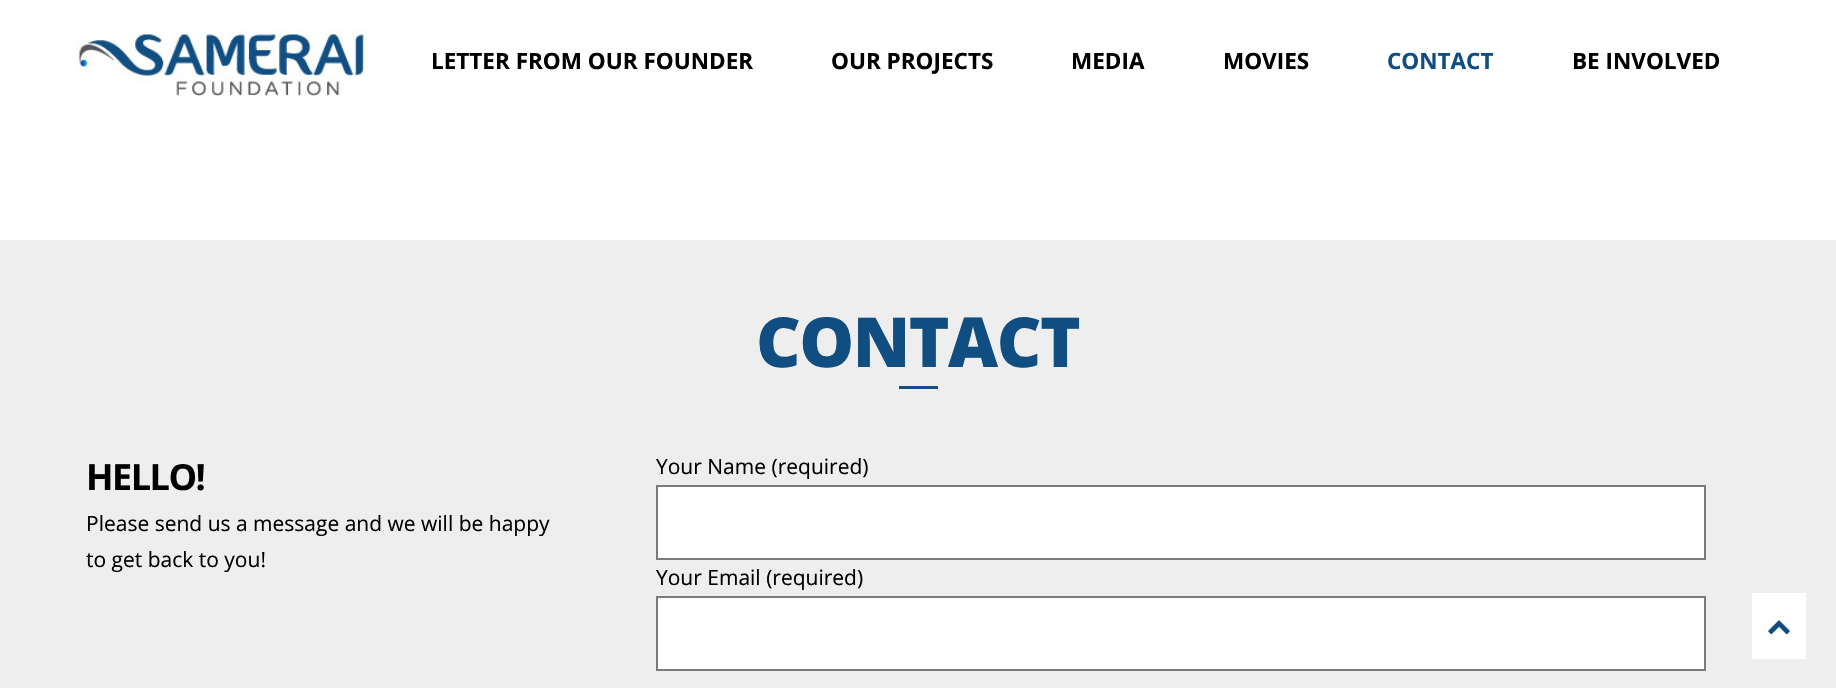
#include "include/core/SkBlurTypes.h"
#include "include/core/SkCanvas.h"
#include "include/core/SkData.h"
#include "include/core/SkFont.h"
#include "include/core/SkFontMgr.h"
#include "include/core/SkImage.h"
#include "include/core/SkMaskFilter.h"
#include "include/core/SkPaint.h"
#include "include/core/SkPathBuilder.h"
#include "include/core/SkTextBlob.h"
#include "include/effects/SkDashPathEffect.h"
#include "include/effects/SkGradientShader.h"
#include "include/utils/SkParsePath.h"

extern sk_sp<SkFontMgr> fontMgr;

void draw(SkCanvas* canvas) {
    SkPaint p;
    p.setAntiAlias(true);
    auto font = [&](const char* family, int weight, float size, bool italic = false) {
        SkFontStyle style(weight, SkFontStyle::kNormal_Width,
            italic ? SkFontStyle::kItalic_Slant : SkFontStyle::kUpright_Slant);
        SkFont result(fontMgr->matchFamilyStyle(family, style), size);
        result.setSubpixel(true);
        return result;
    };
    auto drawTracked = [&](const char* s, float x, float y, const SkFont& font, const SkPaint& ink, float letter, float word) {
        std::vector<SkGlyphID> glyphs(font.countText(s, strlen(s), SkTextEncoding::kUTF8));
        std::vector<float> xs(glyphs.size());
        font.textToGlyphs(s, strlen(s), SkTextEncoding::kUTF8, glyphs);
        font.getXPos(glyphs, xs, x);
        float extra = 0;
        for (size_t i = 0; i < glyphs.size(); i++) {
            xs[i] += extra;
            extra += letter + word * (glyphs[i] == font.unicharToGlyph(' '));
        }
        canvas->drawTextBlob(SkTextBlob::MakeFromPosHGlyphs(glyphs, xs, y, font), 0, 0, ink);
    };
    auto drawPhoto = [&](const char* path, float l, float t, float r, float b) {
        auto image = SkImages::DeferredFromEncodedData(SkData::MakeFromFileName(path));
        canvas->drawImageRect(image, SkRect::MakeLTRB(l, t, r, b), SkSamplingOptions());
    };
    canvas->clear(0xFFEEEEEE);
    p.setColor(0xFFFFFFFF);
    canvas->drawRect(SkRect::MakeLTRB(0, 0, 1836, 240), p);
    drawPhoto("media/1.png", 75, 30, 370, 96);
    auto font1 = font("Open Sans", 700, 22.5f);
    p.setColor(0xFF000000);
    {
        const struct { const char* s; float x, y; } items[] = {
            {"LETTER FROM OUR FOUNDER", 431, 69},
            {"OUR PROJECTS", 831, 69},
            {"MEDIA", 1071, 69},
            {"MOVIES", 1223, 69},
        };
        for (auto [s, x, y] : items) {
            canvas->drawString(s, x, y, font1, p);
        }
    }
    p.setColor(0xFF104D80);
    canvas->drawString("CONTACT", 1387, 69, font1, p);
    p.setColor(0xFF000000);
    canvas->drawString("BE INVOLVED", 1572, 69, font1, p);
    auto font2 = font("Open Sans", 800, 69);
    p.setColor(0xFF104D80);
    drawTracked("CONTACT", 756, 367, font2, p, -1.5f, 0);
    canvas->drawRect(SkRect::MakeLTRB(899, 386, 938, 389), p);
    auto font3 = font("Open Sans", 700, 36);
    p.setColor(0xFF000000);
    drawTracked("HELLO!", 86, 490, font3, p, -1.5f, 0);
    auto font4 = font("Open Sans", 400, 21);
    {
        const struct { const char* s; float x, y; } items[] = {
            {"Please send us a message and we will be happy", 86, 531},
            {"to get back to you!", 86, 567},
            {"Your Name (required)", 656, 474},
        };
        for (auto [s, x, y] : items) {
            canvas->drawString(s, x, y, font4, p);
        }
    }
    p.setColor(0xFFFFFFFF);
    canvas->drawRect(SkRect::MakeLTRB(657, 486, 1705, 559), p);
    p.setStyle(SkPaint::kStroke_Style);
    p.setStrokeWidth(2);
    p.setColor(0xFF7A7A7A);
    canvas->drawRect(SkRect::MakeLTRB(657, 486, 1705, 559), p);
    p.setStyle(SkPaint::kFill_Style);
    p.setColor(0xFF000000);
    canvas->drawString("Your Email (required)", 656, 585, font4, p);
    p.setColor(0xFFFFFFFF);
    canvas->drawRect(SkRect::MakeLTRB(657, 597, 1705, 670), p);
    p.setStyle(SkPaint::kStroke_Style);
    p.setColor(0xFF7A7A7A);
    canvas->drawRect(SkRect::MakeLTRB(657, 597, 1705, 670), p);
    p.setStyle(SkPaint::kFill_Style);
    p.setColor(0xFFFFFFFF);
    canvas->drawRect(SkRect::MakeLTRB(1752, 593, 1806, 659), p);
    drawPhoto("media/2.png", 1768, 620, 1790, 635);
}
